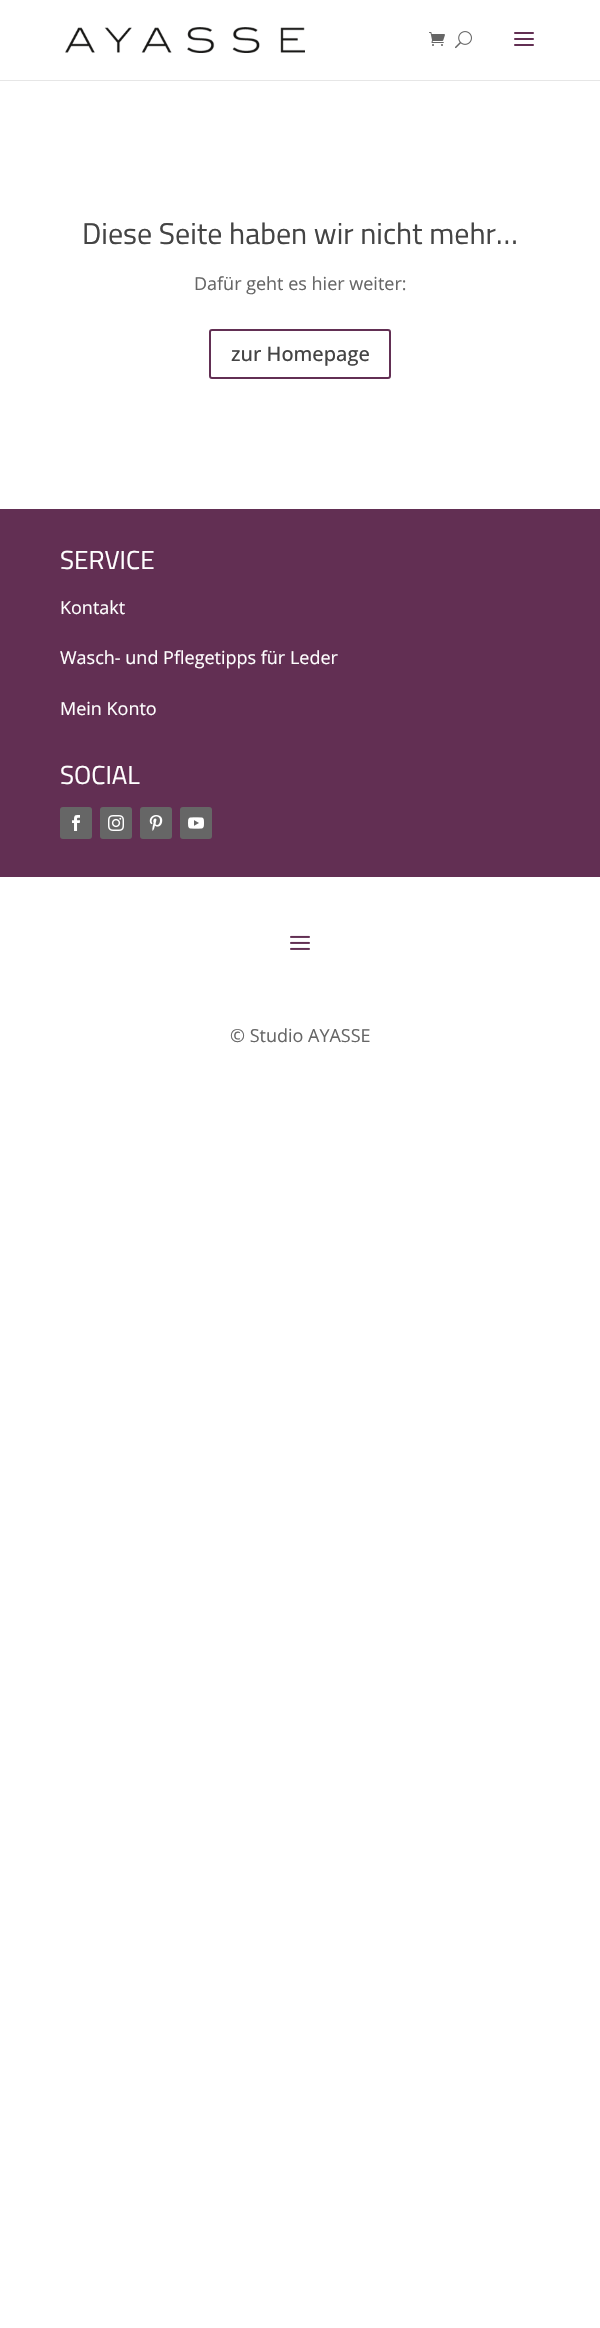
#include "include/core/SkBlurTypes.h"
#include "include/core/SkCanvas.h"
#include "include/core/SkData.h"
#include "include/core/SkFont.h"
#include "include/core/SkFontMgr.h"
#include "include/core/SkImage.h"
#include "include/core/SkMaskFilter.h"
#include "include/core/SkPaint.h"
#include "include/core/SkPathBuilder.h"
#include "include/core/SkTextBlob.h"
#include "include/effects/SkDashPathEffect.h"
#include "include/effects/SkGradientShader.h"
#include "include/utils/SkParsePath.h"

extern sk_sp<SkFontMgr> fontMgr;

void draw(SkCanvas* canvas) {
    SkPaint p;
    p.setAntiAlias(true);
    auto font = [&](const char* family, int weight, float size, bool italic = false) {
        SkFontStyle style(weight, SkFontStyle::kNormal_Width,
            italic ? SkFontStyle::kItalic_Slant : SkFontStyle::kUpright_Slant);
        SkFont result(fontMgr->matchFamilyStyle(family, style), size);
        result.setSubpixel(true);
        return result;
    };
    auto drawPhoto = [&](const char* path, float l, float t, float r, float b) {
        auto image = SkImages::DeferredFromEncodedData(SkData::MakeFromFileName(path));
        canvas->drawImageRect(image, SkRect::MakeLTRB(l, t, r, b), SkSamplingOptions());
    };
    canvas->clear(0xFFFFFFFF);
    p.setColor(0xFFE6E6E6);
    canvas->drawRect(SkRect::MakeLTRB(0, 80, 600, 81), p);
    drawPhoto("media/1.png", 65, 27, 305, 53);
    drawPhoto("media/2.png", 429, 32, 445, 46);
    drawPhoto("media/3.png", 455, 31, 472, 49);
    drawPhoto("media/4.png", 514, 32, 534, 46);
    auto font1 = font("Titillium Web", 400, 30);
    p.setColor(0xFF444444);
    canvas->drawString("Diese Seite haben wir nicht mehr…", 82, 244, font1, p);
    auto font2 = font("Open Sans", 400, 18);
    p.setColor(0xFF666666);
    canvas->drawString("Dafür geht es hier weiter:", 194, 290, font2, p);
    p.setStyle(SkPaint::kStroke_Style);
    p.setStrokeWidth(2);
    p.setColor(0xFF622F53);
    canvas->drawRoundRect(SkRect::MakeLTRB(210, 330, 390, 378), 2, 2, p);
    auto font3 = font("Open Sans", 500, 20);
    p.setStyle(SkPaint::kFill_Style);
    p.setColor(0xFF444444);
    canvas->drawString("zur Homepage", 231, 361, font3, p);
    p.setColor(0xFF622F53);
    canvas->drawRect(SkRect::MakeLTRB(0, 509, 600, 877), p);
    auto font4 = font("Titillium Web", 400, 26);
    p.setColor(0xFFFFFFFF);
    canvas->drawString("SERVICE", 60, 569, font4, p);
    {
        const struct { const char* s; float x, y; } items[] = {
            {"Kontakt", 60, 614},
            {"Wasch- und Pflegetipps für Leder", 60, 664},
            {"Mein Konto", 60, 715},
        };
        for (auto [s, x, y] : items) {
            canvas->drawString(s, x, y, font2, p);
        }
    }
    canvas->drawString("SOCIAL", 60, 784, font4, p);
    p.setColor(0xFF666666);
    canvas->drawRoundRect(SkRect::MakeLTRB(60, 807, 92, 839), 3, 3, p);
    drawPhoto("media/5.png", 72, 815, 80, 831);
    canvas->drawRoundRect(SkRect::MakeLTRB(100, 807, 132, 839), 3, 3, p);
    drawPhoto("media/6.png", 108, 815, 124, 831);
    canvas->drawRoundRect(SkRect::MakeLTRB(140, 807, 172, 839), 3, 3, p);
    drawPhoto("media/7.png", 149, 815, 163, 831);
    canvas->drawRoundRect(SkRect::MakeLTRB(180, 807, 212, 839), 3, 3, p);
    drawPhoto("media/8.png", 188, 817, 204, 829);
    drawPhoto("media/9.png", 290, 935, 310, 950);
    canvas->drawString("© Studio AYASSE", 230, 1042, font2, p);
}
